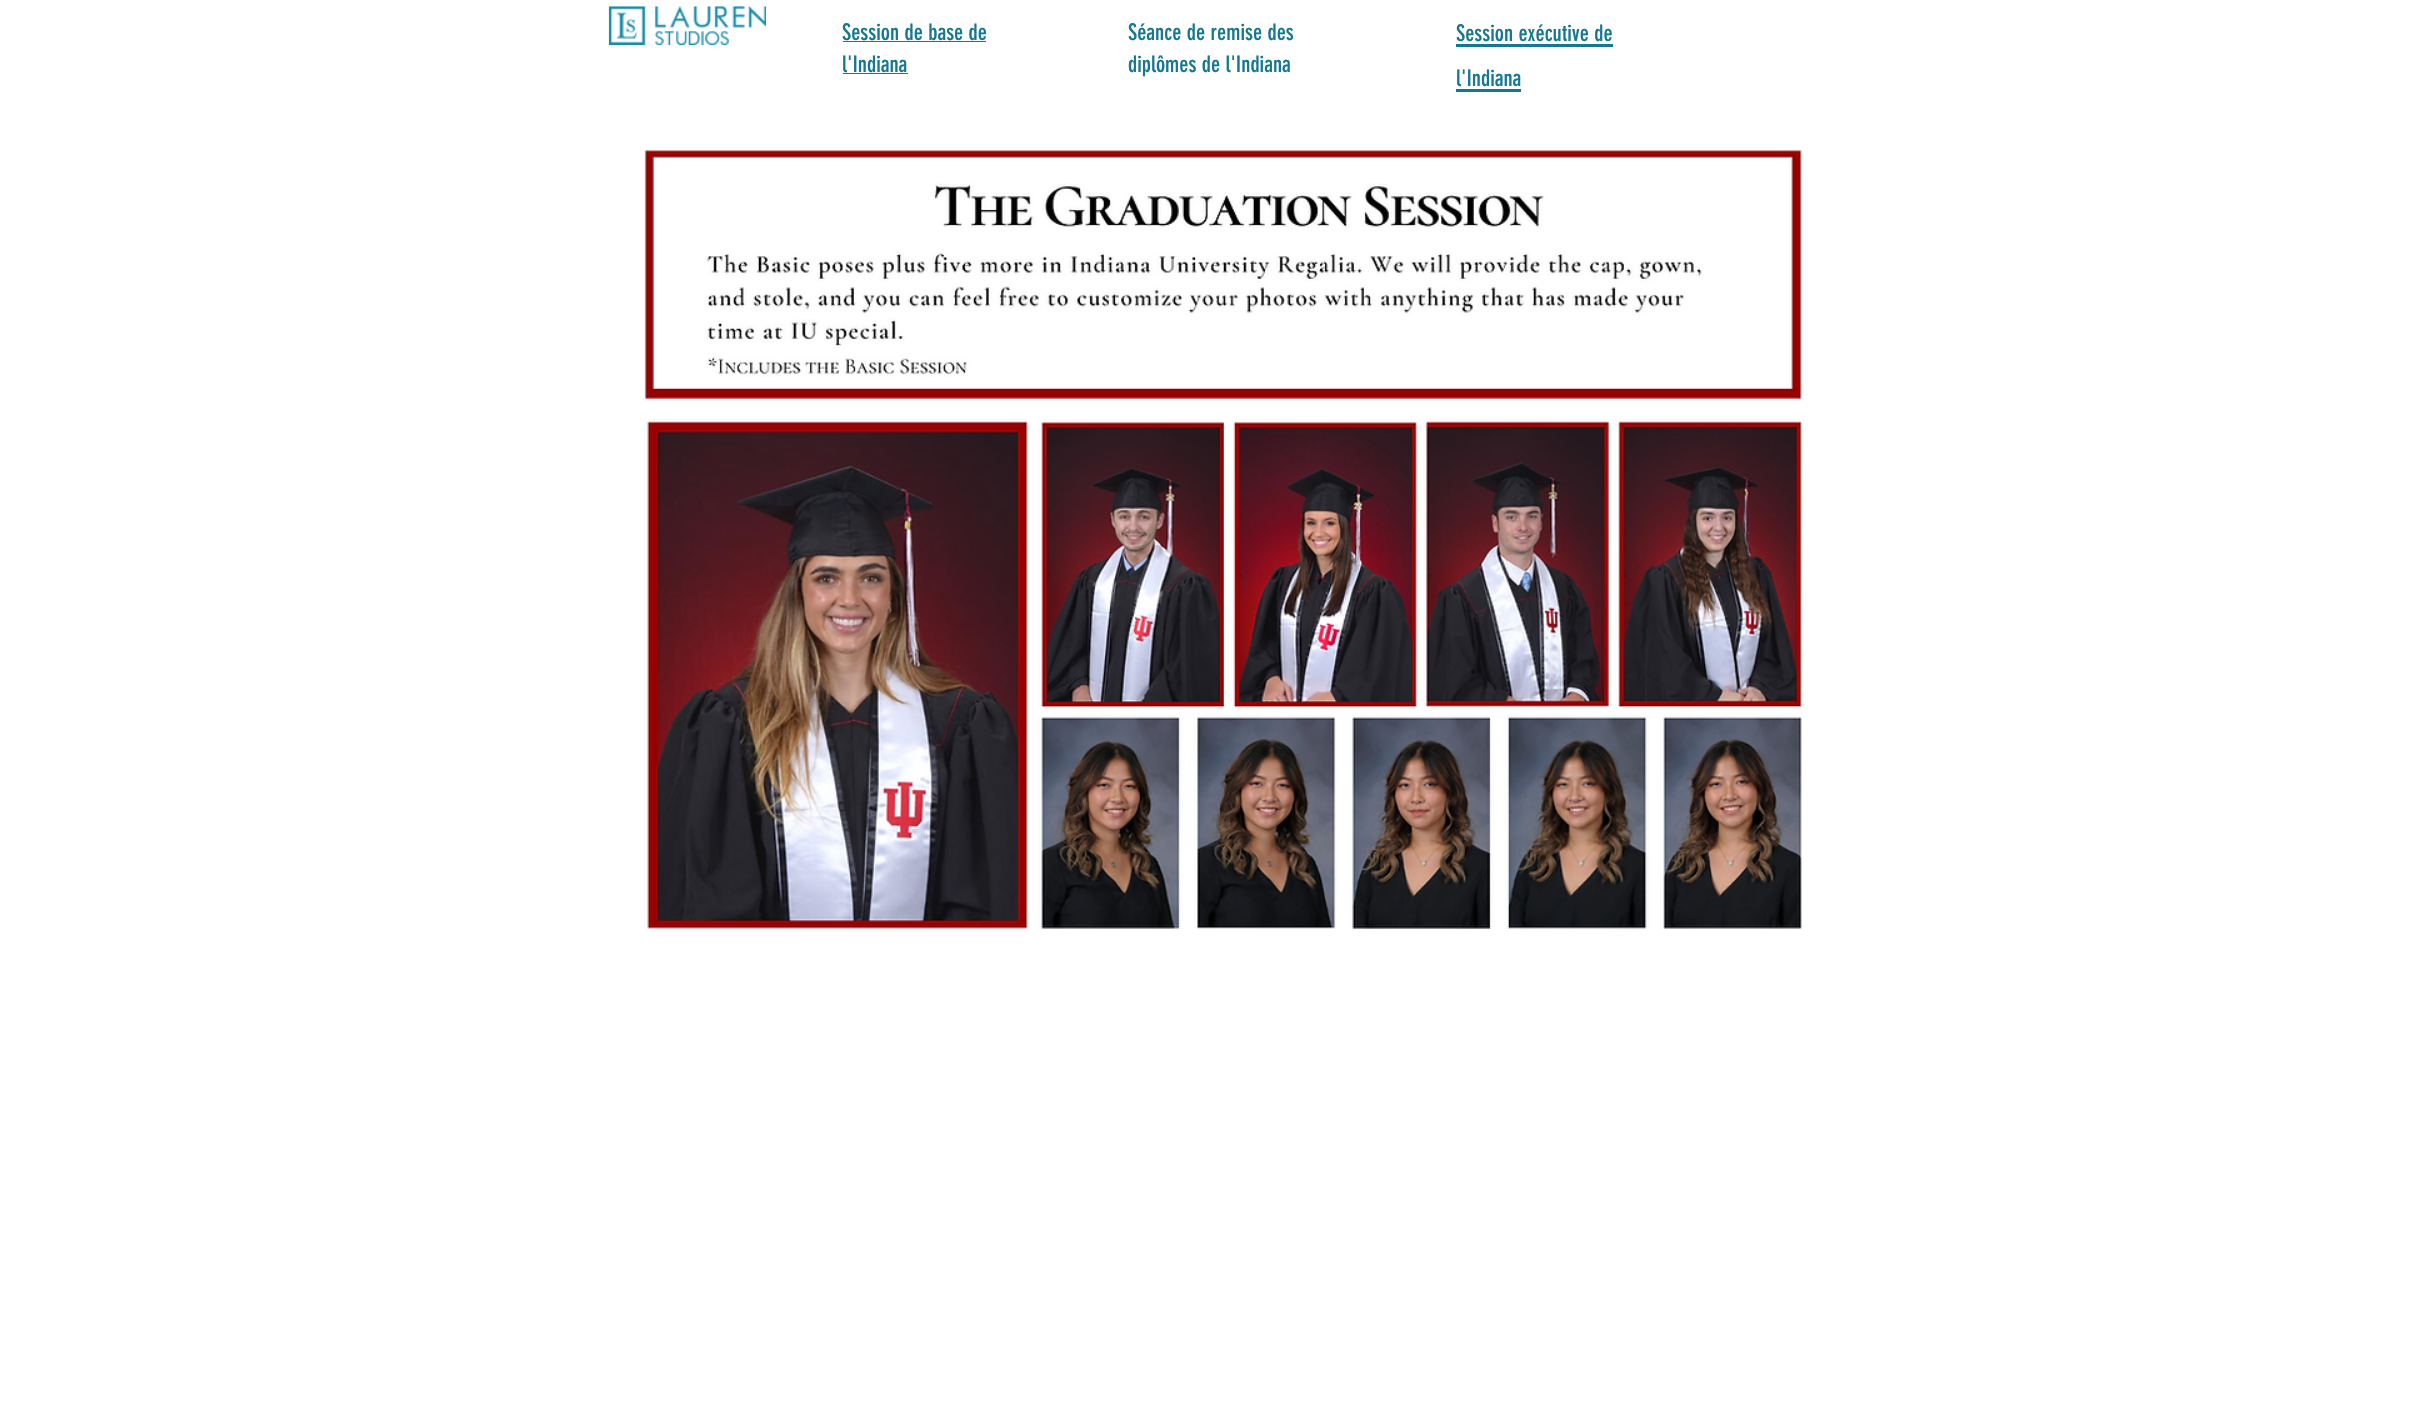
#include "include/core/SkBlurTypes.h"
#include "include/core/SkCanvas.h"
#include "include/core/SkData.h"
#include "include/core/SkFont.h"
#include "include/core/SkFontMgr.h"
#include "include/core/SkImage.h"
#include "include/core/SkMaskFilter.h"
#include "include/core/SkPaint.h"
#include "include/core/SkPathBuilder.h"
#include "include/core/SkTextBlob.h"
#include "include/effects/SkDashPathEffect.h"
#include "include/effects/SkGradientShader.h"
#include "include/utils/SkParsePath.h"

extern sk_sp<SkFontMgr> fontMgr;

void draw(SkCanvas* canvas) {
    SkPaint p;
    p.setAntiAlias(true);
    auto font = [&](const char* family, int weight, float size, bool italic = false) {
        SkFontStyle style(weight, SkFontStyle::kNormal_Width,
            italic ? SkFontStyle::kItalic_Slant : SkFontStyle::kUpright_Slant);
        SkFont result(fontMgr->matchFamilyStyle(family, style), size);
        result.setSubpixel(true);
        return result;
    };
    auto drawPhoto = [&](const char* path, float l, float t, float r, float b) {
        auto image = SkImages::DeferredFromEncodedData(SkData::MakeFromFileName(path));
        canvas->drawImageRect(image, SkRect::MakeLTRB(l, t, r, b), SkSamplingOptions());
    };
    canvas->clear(0xFFFFFFFF);
    drawPhoto("media/1.png", 608, 6, 767, 45);
    auto font1 = font("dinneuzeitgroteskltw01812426", 400, 22.5f);
    p.setColor(0xFF147893);
    canvas->drawString("Session de base de", 842, 40, font1, p);
    canvas->drawRect(SkRect::MakeLTRB(843, 41, 986, 42), p);
    canvas->drawString("l'Indiana", 842, 72, font1, p);
    canvas->drawRect(SkRect::MakeLTRB(843, 73, 908, 74), p);
    {
        const struct { const char* s; float x, y; } items[] = {
            {"Séance de remise des", 1128, 40},
            {"diplômes de l'Indiana", 1128, 72},
            {"Session exécutive de", 1456, 41},
        };
        for (auto [s, x, y] : items) {
            canvas->drawString(s, x, y, font1, p);
        }
    }
    canvas->drawRect(SkRect::MakeLTRB(1456, 44, 1613, 47), p);
    canvas->drawString("l'Indiana", 1456, 86, font1, p);
    canvas->drawRect(SkRect::MakeLTRB(1456, 89, 1521, 92), p);
    drawPhoto("media/2.png", 644, 149, 1802, 929);
}
